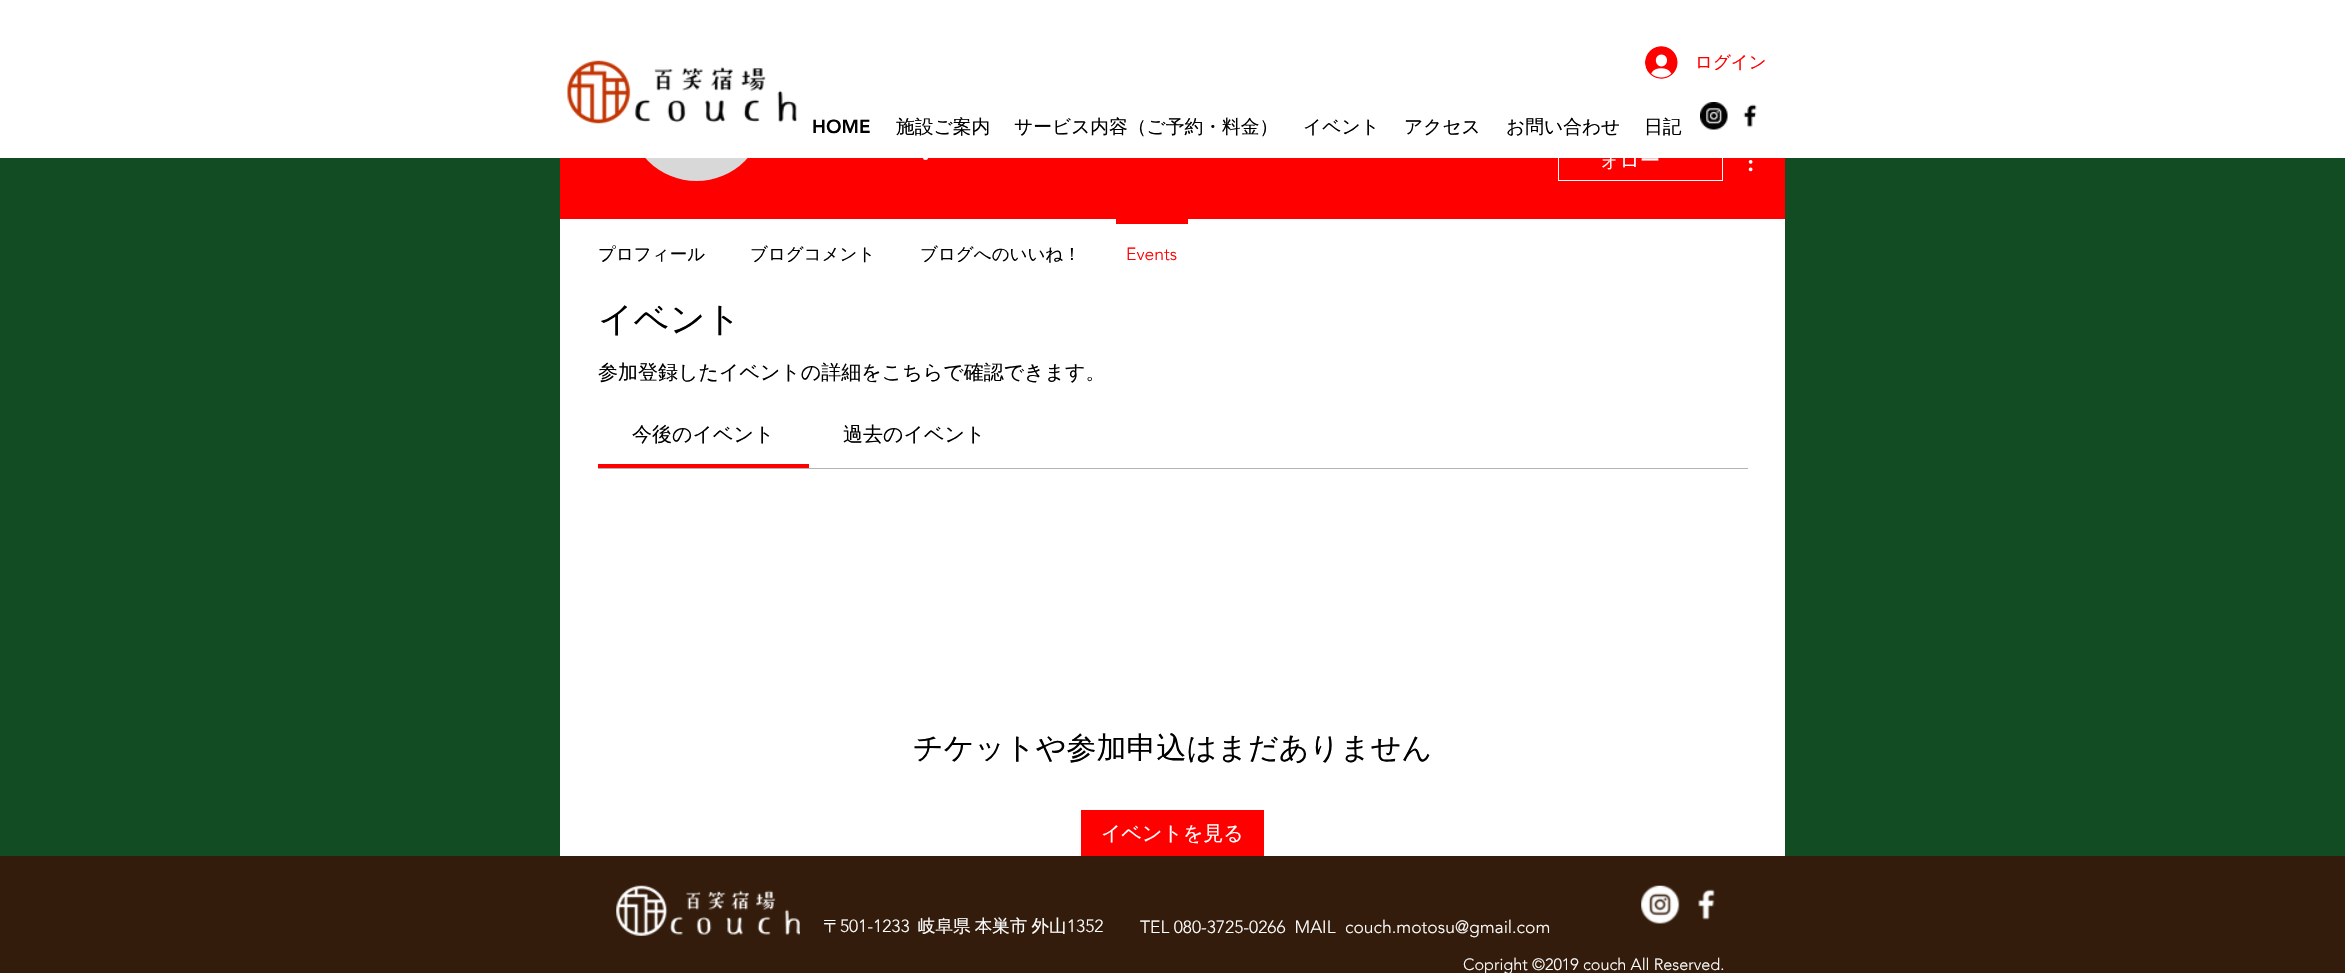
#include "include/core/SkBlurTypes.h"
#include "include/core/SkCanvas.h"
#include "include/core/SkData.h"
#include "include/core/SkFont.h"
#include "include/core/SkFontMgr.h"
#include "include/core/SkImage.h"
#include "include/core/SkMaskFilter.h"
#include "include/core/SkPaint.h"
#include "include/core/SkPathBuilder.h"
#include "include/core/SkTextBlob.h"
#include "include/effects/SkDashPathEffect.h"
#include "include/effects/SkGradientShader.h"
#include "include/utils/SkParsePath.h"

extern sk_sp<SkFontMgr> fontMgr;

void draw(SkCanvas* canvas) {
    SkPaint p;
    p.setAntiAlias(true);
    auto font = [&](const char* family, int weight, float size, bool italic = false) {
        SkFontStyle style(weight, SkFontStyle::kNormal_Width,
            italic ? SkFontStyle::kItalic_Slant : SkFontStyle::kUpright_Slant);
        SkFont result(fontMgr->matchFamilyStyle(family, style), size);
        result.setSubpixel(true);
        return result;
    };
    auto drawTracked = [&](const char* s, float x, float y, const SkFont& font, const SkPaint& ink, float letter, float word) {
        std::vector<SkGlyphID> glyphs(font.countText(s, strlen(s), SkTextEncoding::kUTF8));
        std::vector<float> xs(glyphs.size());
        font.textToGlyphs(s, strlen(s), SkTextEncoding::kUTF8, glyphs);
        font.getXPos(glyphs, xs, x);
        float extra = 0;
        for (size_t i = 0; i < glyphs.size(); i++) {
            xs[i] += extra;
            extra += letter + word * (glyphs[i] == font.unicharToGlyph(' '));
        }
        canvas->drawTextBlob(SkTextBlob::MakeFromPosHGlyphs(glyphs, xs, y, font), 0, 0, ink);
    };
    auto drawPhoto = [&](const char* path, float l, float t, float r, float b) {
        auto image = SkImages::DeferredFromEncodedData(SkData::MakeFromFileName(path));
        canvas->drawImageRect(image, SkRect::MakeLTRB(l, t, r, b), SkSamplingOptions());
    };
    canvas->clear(0xFF114C22);
    p.setColor(0xFFFF0000);
    canvas->drawRect(SkRect::MakeLTRB(560, 158, 1785, 219), p);
    p.setColor(0xFFD8D8D8);
    canvas->drawCircle(696.5f, 112.5f, 68.5f, p);
    p.setColor(0xFFFFFFFF);
    canvas->drawCircle(925.5f, 157.5f, 2.5f, p);
    p.setStyle(SkPaint::kStroke_Style);
    p.setStrokeWidth(1);
    canvas->drawRect(SkRect::MakeLTRB(1558.5f, 141.5f, 1722.5f, 180.5f), p);
    p.setStyle(SkPaint::kFill_Style);
    canvas->drawRect(SkRect::MakeLTRB(0, 0, 2345, 158), p);
    drawPhoto("media/1.png", 567, 60, 797, 124);
    drawPhoto("media/2.png", 1645, 46, 1678, 79);
    auto font1 = font("WenQuanYi Zen Hei", 500, 17.5f);
    p.setColor(0xFFFF0000);
    canvas->drawString("ログイン", 1695, 68, font1, p);
    auto font2 = font("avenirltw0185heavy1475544", 900, 18.75f);
    p.setColor(0xFF000000);
    canvas->drawString("HOME", 812, 133, font2, p);
    auto font3 = font("WenQuanYi Zen Hei", 500, 18.75f);
    {
        const struct { const char* s; float x, y; } items[] = {
            {"施設ご案内", 896, 133},
            {"サービス内容（ご予約・料金）", 1014, 133},
            {"イベント", 1303, 133},
            {"アクセス", 1404, 133},
            {"お問い合わせ", 1506, 133},
            {"日記", 1644, 133},
        };
        for (auto [s, x, y] : items) {
            canvas->drawString(s, x, y, font3, p);
        }
    }
    drawPhoto("media/3.png", 1700, 102, 1728, 130);
    drawPhoto("media/4.png", 1743, 104, 1757, 128);
    auto font4 = font("WenQuanYi Zen Hei", 500, 20);
    p.setColor(0xFFFFFFFF);
    canvas->drawString("ォロー", 1599, 167, font4, p);
    drawPhoto("media/5.png", 1748, 160, 1753, 172);
    canvas->drawRect(SkRect::MakeLTRB(560, 219, 1785, 856), p);
    p.setColor(0xFF000000);
    {
        const struct { const char* s; float x, y; } items[] = {
            {"プロフィール", 598, 260},
            {"ブログコメント", 750, 260},
            {"ブログへのいいね！", 920, 260},
        };
        for (auto [s, x, y] : items) {
            canvas->drawString(s, x, y, font1, p);
        }
    }
    p.setColor(0xFFFF0000);
    canvas->drawRect(SkRect::MakeLTRB(1116, 219, 1188, 224), p);
    auto font5 = font("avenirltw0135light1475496", 300, 17.5f);
    canvas->drawString("Events", 1126, 260, font5, p);
    auto font6 = font("WenQuanYi Zen Hei", 500, 35);
    p.setColor(0xFF000000);
    canvas->drawString("イベント", 598, 331, font6, p);
    canvas->drawString("参加登録したイベントの詳細をこちらで確認できます。", 598, 379, font4, p);
    p.setColor(0xFFFF0000);
    canvas->drawRect(SkRect::MakeLTRB(598, 464, 809, 468), p);
    p.setColor(0xFF000000);
    canvas->drawString("今後のイベント", 632, 441, font4, p);
    canvas->drawString("過去のイベント", 843, 441, font4, p);
    p.setColor(0xFFB3B3B3);
    canvas->drawRect(SkRect::MakeLTRB(598, 468, 1748, 469), p);
    auto font7 = font("WenQuanYi Zen Hei", 500, 30);
    p.setColor(0xFF000000);
    canvas->drawString("チケットや参加申込はまだありません", 913, 758, font7, p);
    p.setColor(0xFFFF0000);
    canvas->drawRect(SkRect::MakeLTRB(1081, 810, 1264, 856), p);
    p.setColor(0xFFFFFFFF);
    canvas->drawString("イベントを見る", 1101, 840, font4, p);
    p.setColor(0xFF331C0B);
    canvas->drawRect(SkRect::MakeLTRB(0, 856, 2345, 973), p);
    drawPhoto("media/6.png", 616, 885, 800, 936);
    drawPhoto("media/7.png", 1641, 885, 1680, 924);
    drawPhoto("media/8.png", 1698, 889, 1715, 920);
    p.setColor(0xFFFFFFFF);
    canvas->drawString("〒", 823, 932, font1, p);
    canvas->drawString("501-1233", 840, 932, font5, p);
    drawTracked("岐阜県 本巣市 外山", 918, 932, font1, p, 0, -1);
    {
        const struct { const char* s; float x, y; } items[] = {
            {"1352", 1067, 932},
            {"TEL 080-3725-0266  MAIL", 1140, 933},
            {"couch.motosu@gmail.com", 1345, 933},
        };
        for (auto [s, x, y] : items) {
            canvas->drawString(s, x, y, font5, p);
        }
    }
    auto font8 = font("avenirltw0135light1475496", 300, 16.25f);
    canvas->drawString("Copright ©2019 couch All Reserved.", 1463, 970, font8, p);
}
